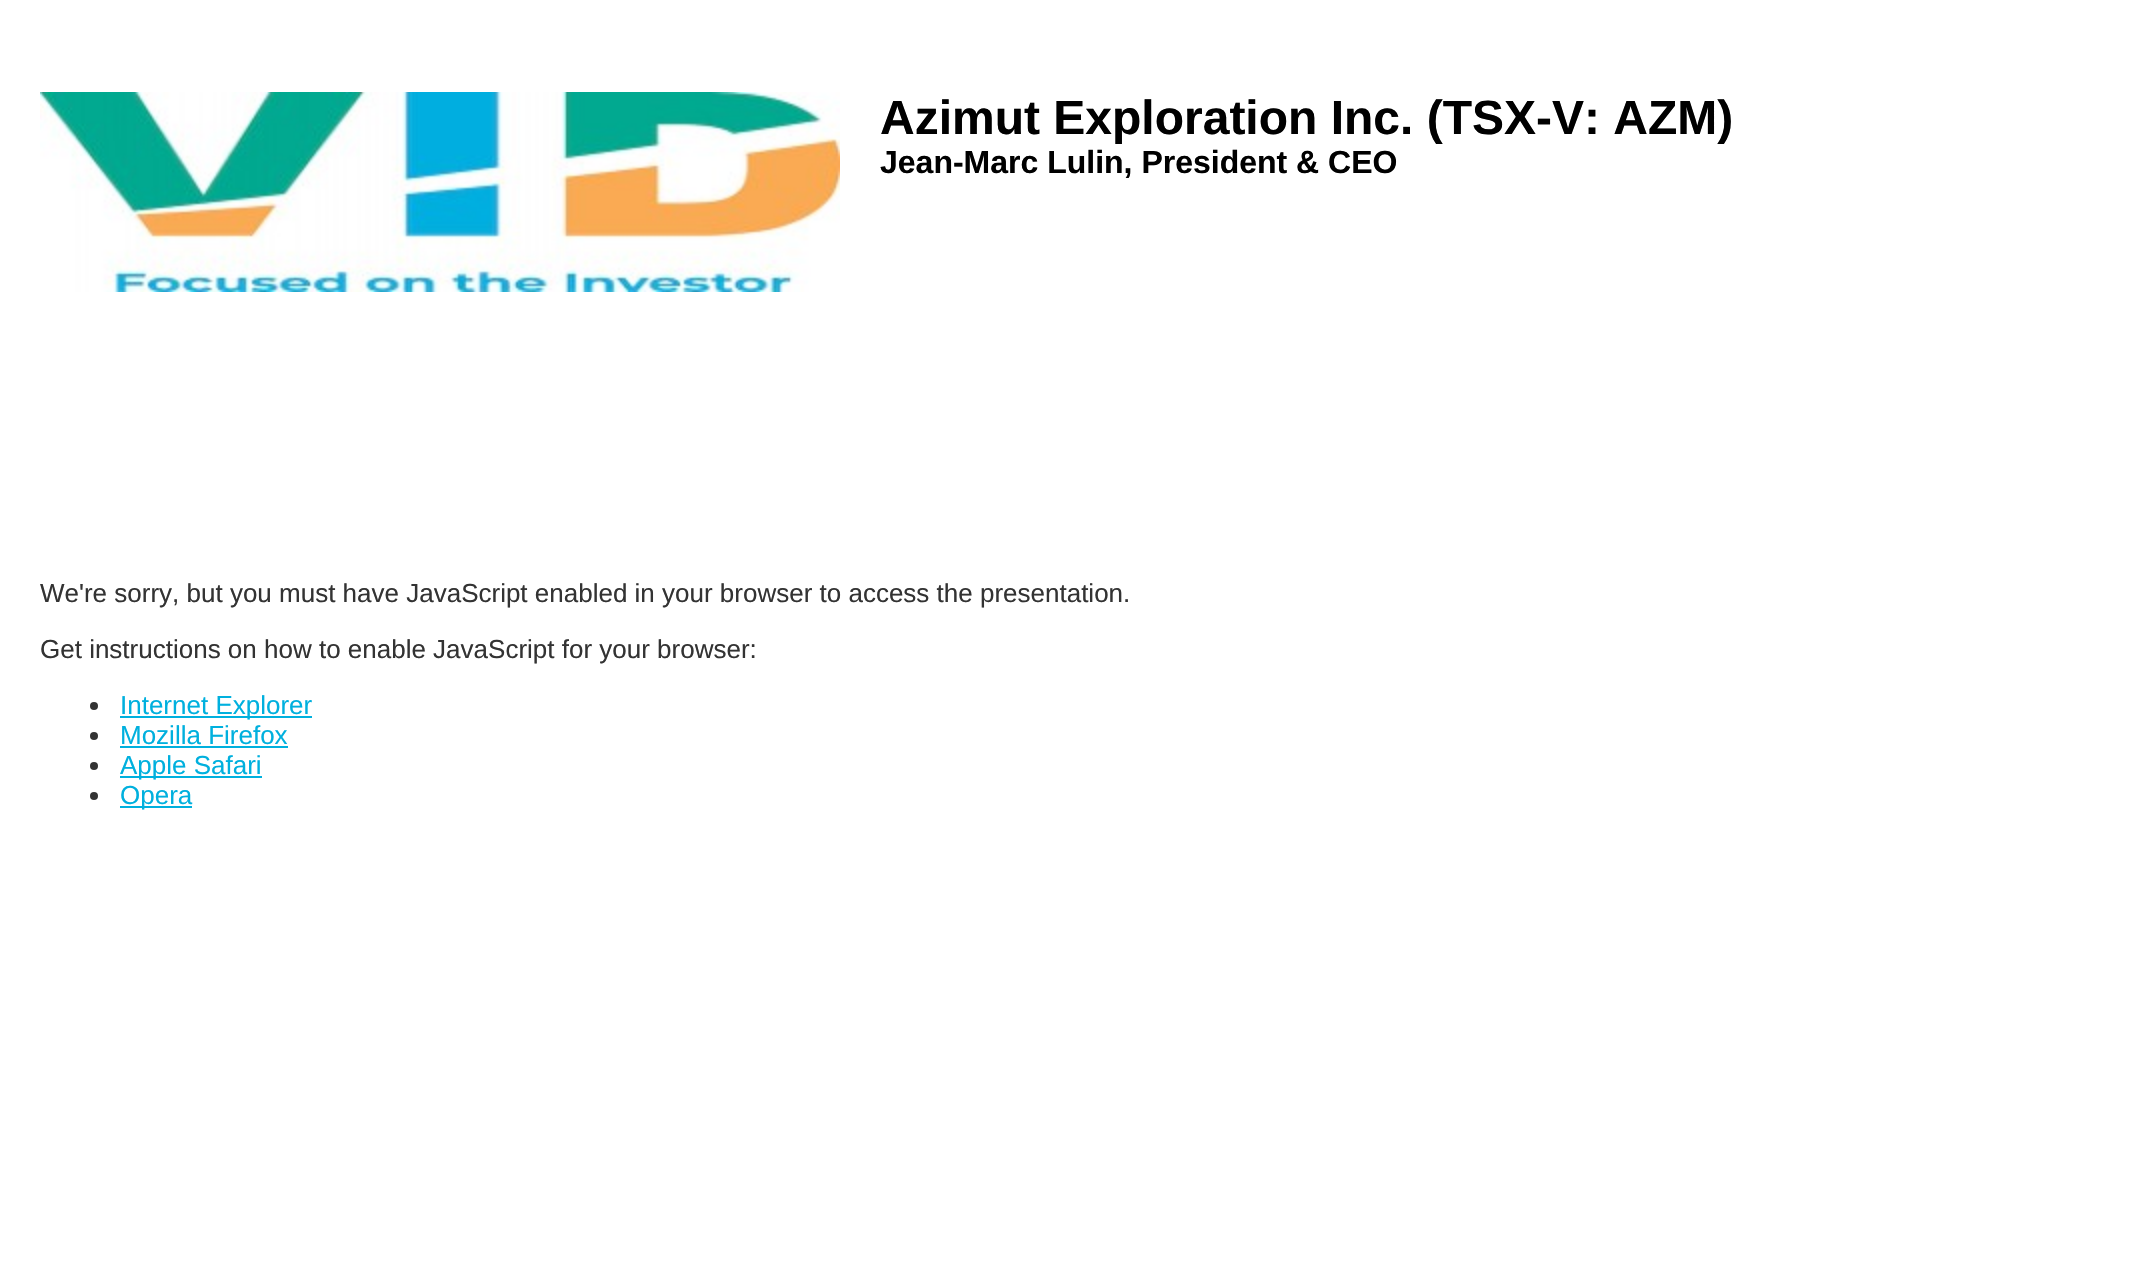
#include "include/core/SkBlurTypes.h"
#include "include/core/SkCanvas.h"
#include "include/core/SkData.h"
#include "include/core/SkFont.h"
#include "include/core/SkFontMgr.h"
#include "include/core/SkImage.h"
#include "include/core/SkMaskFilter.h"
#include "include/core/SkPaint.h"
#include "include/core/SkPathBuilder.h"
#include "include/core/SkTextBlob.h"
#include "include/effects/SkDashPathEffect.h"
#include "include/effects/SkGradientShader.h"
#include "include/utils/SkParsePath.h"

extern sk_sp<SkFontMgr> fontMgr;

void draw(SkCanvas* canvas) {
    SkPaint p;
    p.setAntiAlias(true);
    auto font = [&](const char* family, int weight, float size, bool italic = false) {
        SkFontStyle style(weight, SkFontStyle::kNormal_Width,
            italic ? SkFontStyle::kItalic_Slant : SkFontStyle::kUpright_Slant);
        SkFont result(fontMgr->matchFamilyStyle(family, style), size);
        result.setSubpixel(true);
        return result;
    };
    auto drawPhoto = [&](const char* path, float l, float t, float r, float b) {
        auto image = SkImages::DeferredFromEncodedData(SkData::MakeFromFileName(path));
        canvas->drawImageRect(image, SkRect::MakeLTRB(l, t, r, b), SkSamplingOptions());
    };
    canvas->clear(0xFFFFFFFF);
    drawPhoto("media/1.png", 40, 92, 840, 292);
    auto font1 = font("Liberation Sans", 700, 48);
    p.setColor(0xFF000000);
    canvas->drawString("Azimut Exploration Inc. (TSX-V: AZM)", 880, 134, font1, p);
    auto font2 = font("Liberation Sans", 700, 32);
    canvas->drawString("Jean-Marc Lulin, President & CEO", 880, 173, font2, p);
    auto font3 = font("Liberation Sans", 400, 26);
    p.setColor(0xFF333333);
    canvas->drawString("We're sorry, but you must have JavaScript enabled in your browser to access the presentation.", 40, 602, font3, p);
    canvas->drawString("Get instructions on how to enable JavaScript for your browser:", 40, 658, font3, p);
    canvas->drawCircle(94, 706, 4, p);
    p.setColor(0xFF00B0DE);
    canvas->drawRect(SkRect::MakeLTRB(120, 716, 312, 718), p);
    canvas->drawString("Internet Explorer", 120, 714, font3, p);
    p.setColor(0xFF333333);
    canvas->drawCircle(94, 736, 4, p);
    p.setColor(0xFF00B0DE);
    canvas->drawString("Mozilla Firefox", 120, 744, font3, p);
    canvas->drawRect(SkRect::MakeLTRB(120, 746, 288, 748), p);
    p.setColor(0xFF333333);
    canvas->drawCircle(94, 766, 4, p);
    p.setColor(0xFF00B0DE);
    canvas->drawRect(SkRect::MakeLTRB(120, 776, 262, 778), p);
    canvas->drawString("Apple Safari", 120, 774, font3, p);
    p.setColor(0xFF333333);
    canvas->drawCircle(94, 796, 4, p);
    p.setColor(0xFF00B0DE);
    canvas->drawRect(SkRect::MakeLTRB(120, 806, 192, 808), p);
    canvas->drawString("Opera", 120, 804, font3, p);
}
